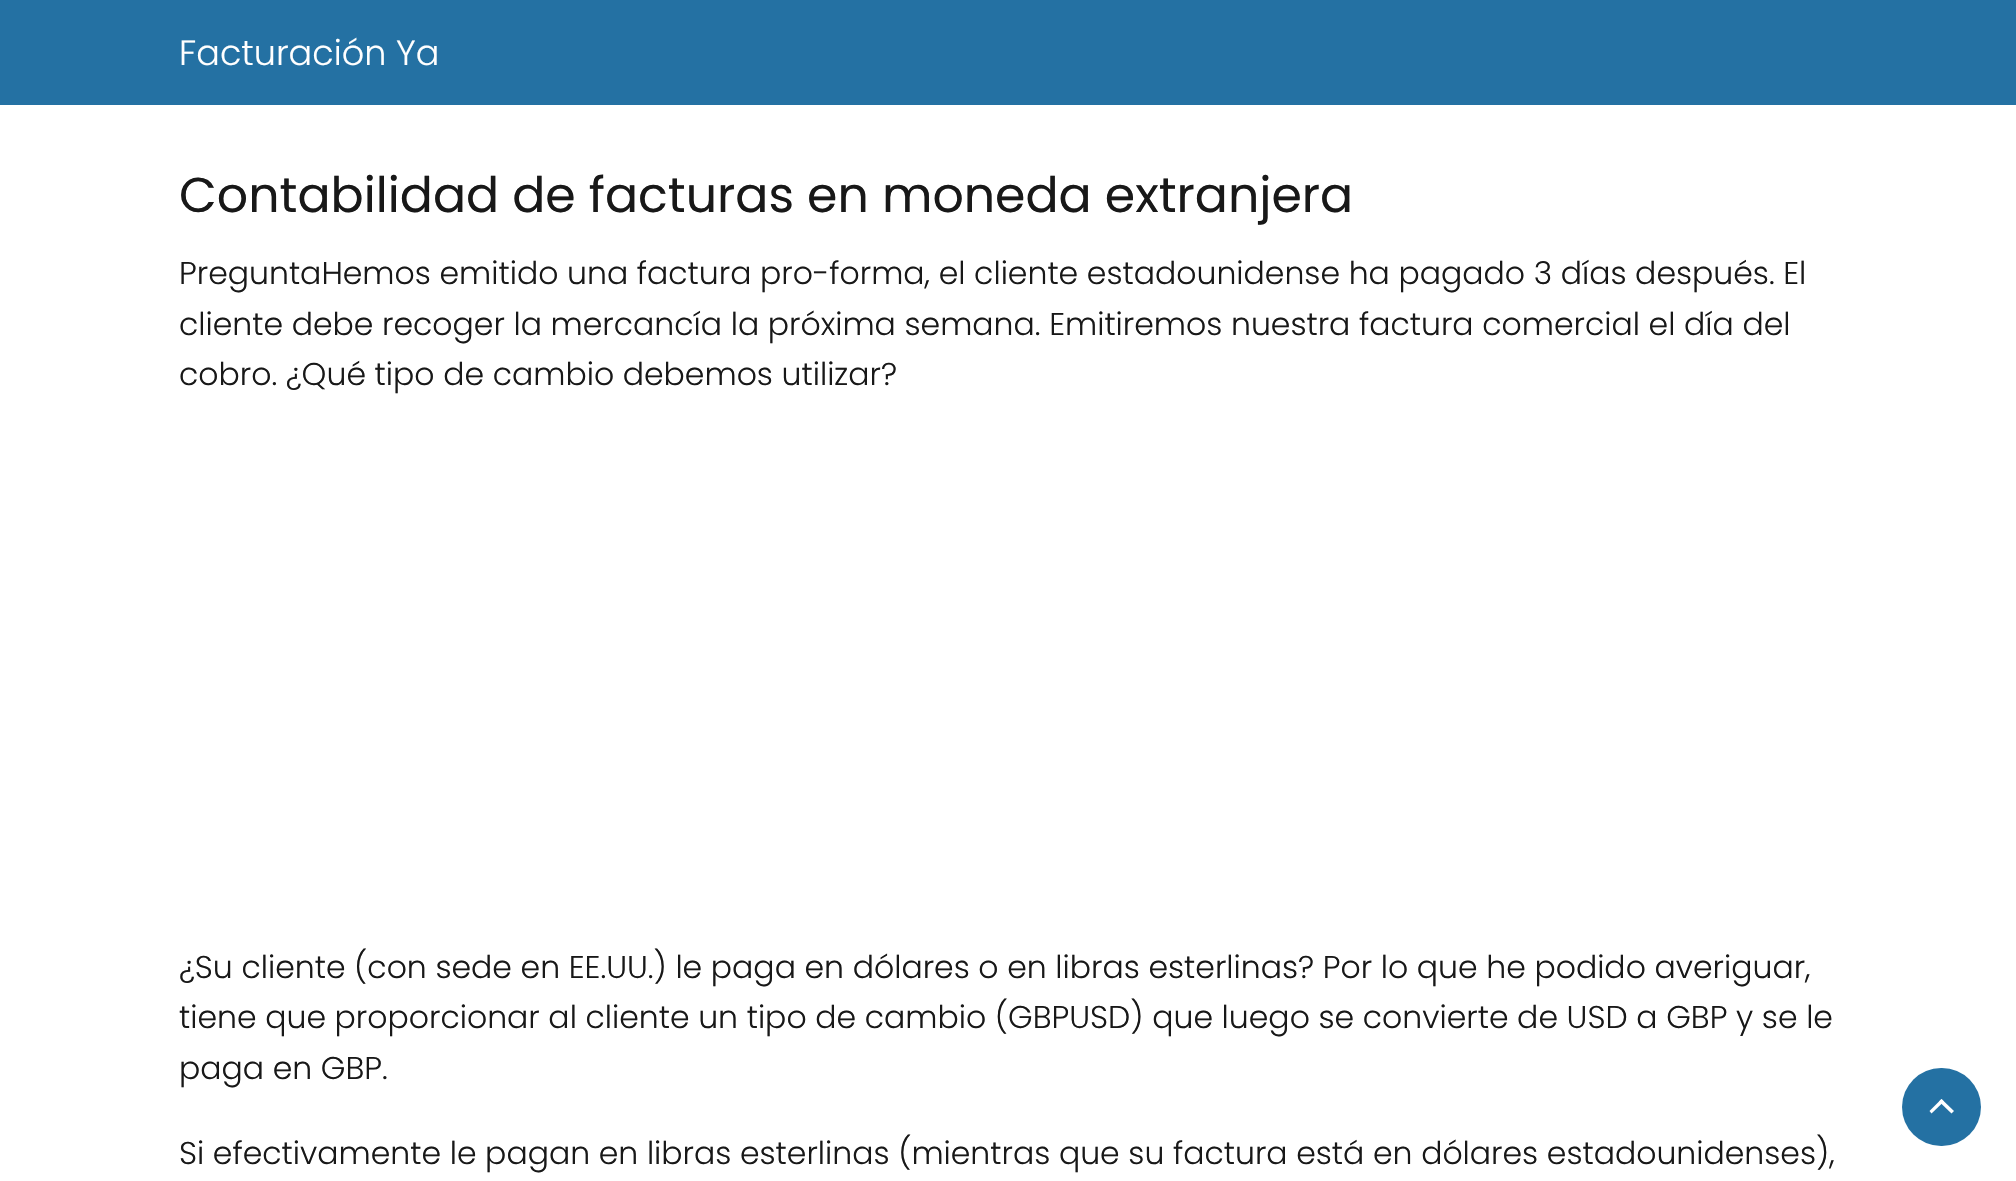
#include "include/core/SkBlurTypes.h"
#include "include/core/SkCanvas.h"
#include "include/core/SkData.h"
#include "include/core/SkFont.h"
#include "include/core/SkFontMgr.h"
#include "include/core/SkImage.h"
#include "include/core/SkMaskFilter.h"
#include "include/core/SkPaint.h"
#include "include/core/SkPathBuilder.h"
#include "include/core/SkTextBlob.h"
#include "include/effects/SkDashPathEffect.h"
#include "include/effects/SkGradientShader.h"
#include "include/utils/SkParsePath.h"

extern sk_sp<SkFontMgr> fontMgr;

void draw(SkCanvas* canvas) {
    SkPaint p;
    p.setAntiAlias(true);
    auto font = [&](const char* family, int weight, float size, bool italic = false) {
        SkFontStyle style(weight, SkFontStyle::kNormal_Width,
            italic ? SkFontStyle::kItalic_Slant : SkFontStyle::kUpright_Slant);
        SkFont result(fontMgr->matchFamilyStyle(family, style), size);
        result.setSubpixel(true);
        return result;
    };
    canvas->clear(0xFFFFFFFF);
    p.setColor(0xFF2471A3);
    canvas->drawRect(SkRect::MakeLTRB(0, 0, 2016, 105), p);
    auto font1 = font("Poppins", 300, 35);
    p.setColor(0xFFFFFFFF);
    canvas->drawString("Facturación Ya", 179, 65, font1, p);
    auto font2 = font("Poppins", 400, 49);
    p.setColor(0xFF181818);
    canvas->drawString("Contabilidad de facturas en moneda extranjera", 179, 212, font2, p);
    auto font3 = font("Poppins", 300, 31.5f);
    {
        const struct { const char* s; float x, y; } items[] = {
            {"PreguntaHemos emitido una factura pro-forma, el cliente estadounidense ha pagado 3 días después. El", 179, 284},
            {"cliente debe recoger la mercancía la próxima semana. Emitiremos nuestra factura comercial el día del", 179, 335},
            {"cobro. ¿Qué tipo de cambio debemos utilizar?", 179, 385},
            {"¿Su cliente (con sede en EE.UU.) le paga en dólares o en libras esterlinas? Por lo que he podido averiguar,", 179, 978},
            {"tiene que proporcionar al cliente un tipo de cambio (GBPUSD) que luego se convierte de USD a GBP y se le", 179, 1028},
            {"paga en GBP.", 179, 1079},
            {"Si efectivamente le pagan en libras esterlinas (mientras que su factura está en dólares estadounidenses),", 179, 1164},
        };
        for (auto [s, x, y] : items) {
            canvas->drawString(s, x, y, font3, p);
        }
    }
    p.setColor(0xFF2471A3);
    canvas->drawRoundRect(SkRect::MakeLTRB(1902, 1068, 1981, 1146), 39, 39, p);
    p.setColor(0xFFFFFFFF);
    canvas->drawPath(SkPathBuilder().moveTo(1931.5f, 1113.5f).lineTo(1929.5f, 1111).lineTo(1941.5f, 1099).lineTo(1944, 1101.5f).close().detach(), p);
    canvas->drawPath(SkPathBuilder().moveTo(1951.5f, 1113.5f).lineTo(1939, 1101.5f).lineTo(1941.5f, 1099).lineTo(1954, 1111).close().detach(), p);
}
